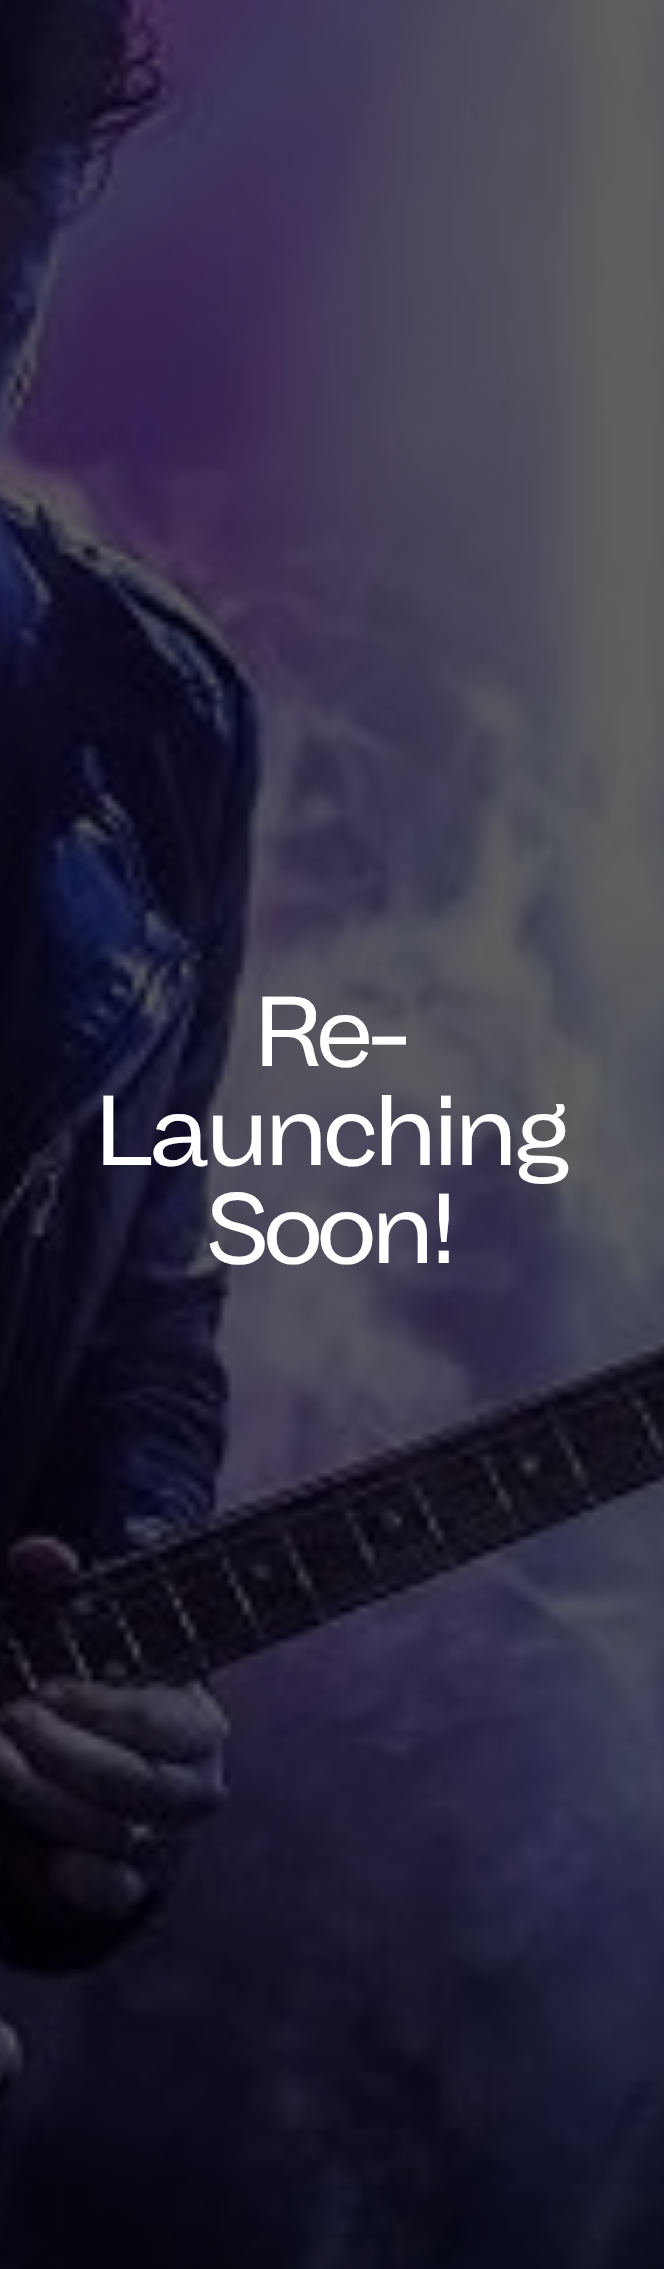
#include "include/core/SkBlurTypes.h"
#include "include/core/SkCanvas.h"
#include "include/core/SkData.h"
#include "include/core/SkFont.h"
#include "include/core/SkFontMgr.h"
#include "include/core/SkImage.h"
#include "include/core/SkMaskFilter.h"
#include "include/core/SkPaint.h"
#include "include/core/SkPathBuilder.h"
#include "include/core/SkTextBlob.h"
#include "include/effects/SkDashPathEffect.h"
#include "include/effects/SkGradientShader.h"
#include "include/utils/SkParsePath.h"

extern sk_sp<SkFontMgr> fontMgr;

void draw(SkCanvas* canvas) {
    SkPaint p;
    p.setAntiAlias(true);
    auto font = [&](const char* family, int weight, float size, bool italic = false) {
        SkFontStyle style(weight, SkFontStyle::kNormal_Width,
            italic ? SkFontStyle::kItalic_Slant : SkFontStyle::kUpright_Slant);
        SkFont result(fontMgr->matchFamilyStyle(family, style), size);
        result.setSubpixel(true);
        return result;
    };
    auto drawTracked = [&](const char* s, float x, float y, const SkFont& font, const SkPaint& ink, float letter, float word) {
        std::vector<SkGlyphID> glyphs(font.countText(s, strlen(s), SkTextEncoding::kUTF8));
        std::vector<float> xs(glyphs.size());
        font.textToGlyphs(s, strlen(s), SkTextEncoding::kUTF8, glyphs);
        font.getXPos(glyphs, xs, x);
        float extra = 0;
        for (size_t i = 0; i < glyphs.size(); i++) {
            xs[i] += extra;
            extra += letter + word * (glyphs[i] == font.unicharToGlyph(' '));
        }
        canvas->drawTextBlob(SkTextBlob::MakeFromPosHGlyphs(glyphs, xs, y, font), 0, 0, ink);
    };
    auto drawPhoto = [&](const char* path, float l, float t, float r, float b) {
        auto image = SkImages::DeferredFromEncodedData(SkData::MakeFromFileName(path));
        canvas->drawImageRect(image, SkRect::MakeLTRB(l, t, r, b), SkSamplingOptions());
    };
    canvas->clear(0xFFFFFFFF);
    drawPhoto("media/1.png", 0, 0, 664, 2269);
    auto font1 = font("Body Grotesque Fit", 400, 99);
    p.setColor(0xFFFFFFFF);
    {
        const struct { const char* s; float x, y; } items[] = {
            {"Re-", 254, 1066},
            {"Launching", 95, 1165},
            {"Soon!", 207, 1263},
        };
        for (auto [s, x, y] : items) {
            drawTracked(s, x, y, font1, p, -4, 0);
        }
    }
}
